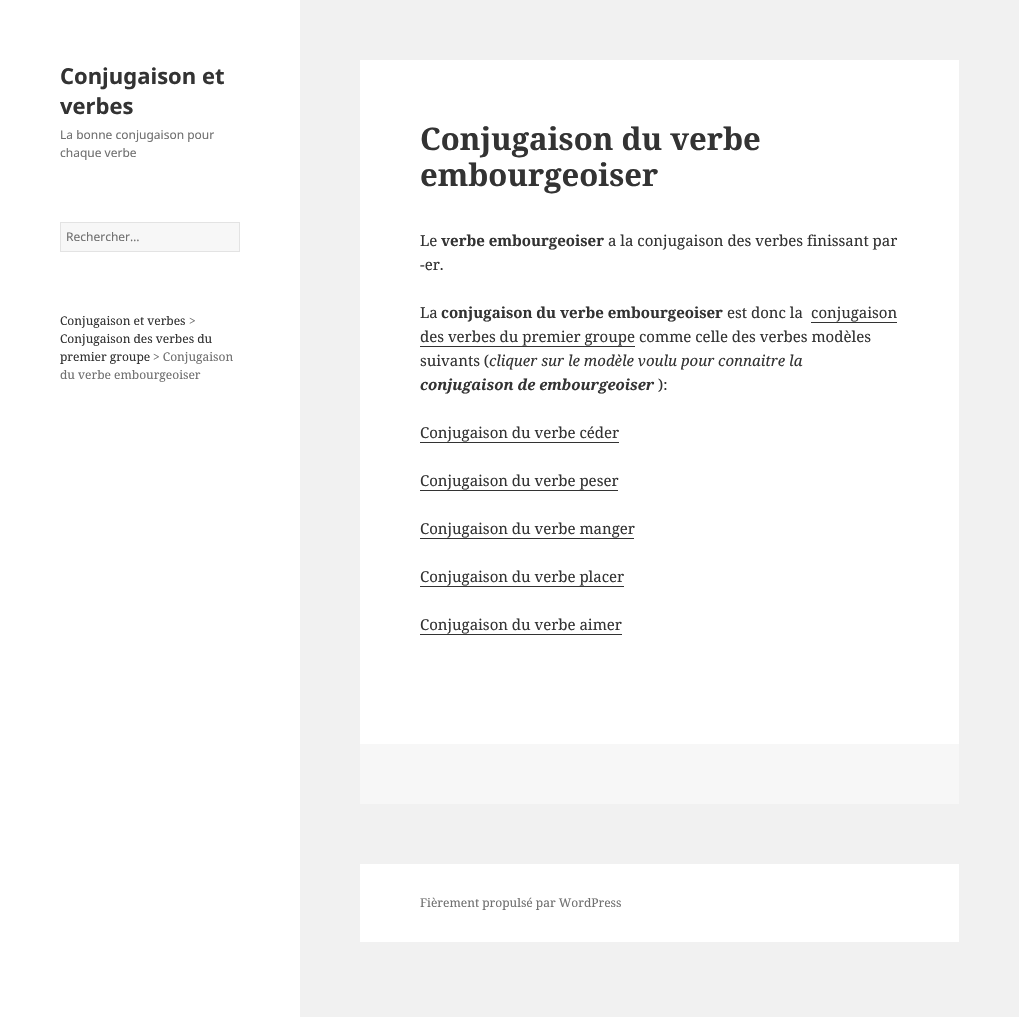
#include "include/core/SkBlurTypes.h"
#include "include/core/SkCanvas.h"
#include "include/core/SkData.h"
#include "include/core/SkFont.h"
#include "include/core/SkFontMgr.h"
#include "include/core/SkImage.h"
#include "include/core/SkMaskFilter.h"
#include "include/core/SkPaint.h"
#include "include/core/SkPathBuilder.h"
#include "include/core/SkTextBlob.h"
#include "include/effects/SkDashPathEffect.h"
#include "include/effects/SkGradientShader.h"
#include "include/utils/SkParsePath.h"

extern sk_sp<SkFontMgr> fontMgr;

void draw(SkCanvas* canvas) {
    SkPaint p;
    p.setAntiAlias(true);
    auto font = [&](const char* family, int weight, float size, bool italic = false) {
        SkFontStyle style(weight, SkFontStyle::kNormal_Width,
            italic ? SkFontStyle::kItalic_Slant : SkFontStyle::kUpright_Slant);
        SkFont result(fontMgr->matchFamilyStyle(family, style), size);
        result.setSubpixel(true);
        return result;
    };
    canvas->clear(0xFFF1F1F1);
    p.setColor(0xFFFFFFFF);
    canvas->drawRect(SkRect::MakeLTRB(0, 0, 300, 1017), p);
    auto font1 = font("Noto Sans", 700, 22);
    p.setColor(0xFF333333);
    canvas->drawString("Conjugaison et", 60, 84, font1, p);
    canvas->drawString("verbes", 60, 114, font1, p);
    auto font2 = font("Noto Sans", 400, 12);
    p.setColor(0xFF707070);
    canvas->drawString("La bonne conjugaison pour", 60, 139, font2, p);
    canvas->drawString("chaque verbe", 60, 157, font2, p);
    p.setColor(0xFFF7F7F7);
    canvas->drawRect(SkRect::MakeLTRB(60.5f, 222.5f, 239.5f, 251.5f), p);
    p.setStyle(SkPaint::kStroke_Style);
    p.setStrokeWidth(1);
    p.setColor(0xFFE3E3E3);
    canvas->drawRect(SkRect::MakeLTRB(60.5f, 222.5f, 239.5f, 251.5f), p);
    p.setStyle(SkPaint::kFill_Style);
    p.setColor(0xFF707070);
    canvas->drawString("Rechercher…", 66, 241, font2, p);
    auto font3 = font("Noto Serif", 400, 12);
    p.setColor(0xFF333333);
    canvas->drawString("Conjugaison et verbes", 60, 325, font3, p);
    p.setColor(0xFF707070);
    canvas->drawString(">", 189, 325, font3, p);
    p.setColor(0xFF333333);
    canvas->drawString("Conjugaison des verbes du", 60, 343, font3, p);
    canvas->drawString("premier groupe", 60, 361, font3, p);
    p.setColor(0xFF707070);
    canvas->drawString("> Conjugaison", 153, 361, font3, p);
    canvas->drawString("du verbe embourgeoiser", 60, 379, font3, p);
    p.setColor(0xFFFFFFFF);
    canvas->drawRect(SkRect::MakeLTRB(360, 60, 959, 744), p);
    auto font4 = font("Noto Serif", 700, 31);
    p.setColor(0xFF333333);
    canvas->drawString("Conjugaison du verbe", 420, 150, font4, p);
    canvas->drawString("embourgeoiser", 420, 186, font4, p);
    auto font5 = font("Noto Serif", 400, 15);
    canvas->drawString("Le", 420, 246, font5, p);
    auto font6 = font("Noto Serif", 700, 15);
    canvas->drawString("verbe embourgeoiser", 441, 246, font6, p);
    {
        const struct { const char* s; float x, y; } items[] = {
            {"a la conjugaison des verbes finissant par", 608, 246},
            {"-er.", 420, 270},
            {"La", 420, 318},
        };
        for (auto [s, x, y] : items) {
            canvas->drawString(s, x, y, font5, p);
        }
    }
    canvas->drawString("conjugaison du verbe embourgeoiser", 441, 318, font6, p);
    canvas->drawString("est donc la", 727, 318, font5, p);
    canvas->drawString("conjugaison", 811, 318, font5, p);
    canvas->drawRect(SkRect::MakeLTRB(811, 322, 897, 323), p);
    canvas->drawString("des verbes du premier groupe comme celle des verbes modèles", 420, 342, font5, p);
    canvas->drawRect(SkRect::MakeLTRB(420, 346, 635, 347), p);
    canvas->drawString("suivants (", 420, 366, font5, p);
    auto font7 = font("Noto Serif", 400, 15, true);
    canvas->drawString("cliquer sur le modèle voulu pour connaitre la", 489, 366, font7, p);
    auto font8 = font("Noto Serif", 700, 15, true);
    canvas->drawString("conjugaison de embourgeoiser", 420, 390, font8, p);
    canvas->drawString("):", 658, 390, font5, p);
    canvas->drawString("Conjugaison du verbe céder", 420, 438, font5, p);
    canvas->drawRect(SkRect::MakeLTRB(420, 442, 619, 443), p);
    canvas->drawString("Conjugaison du verbe peser", 420, 486, font5, p);
    canvas->drawRect(SkRect::MakeLTRB(420, 490, 618, 491), p);
    canvas->drawString("Conjugaison du verbe manger", 420, 534, font5, p);
    canvas->drawRect(SkRect::MakeLTRB(420, 538, 634, 539), p);
    canvas->drawString("Conjugaison du verbe placer", 420, 582, font5, p);
    canvas->drawRect(SkRect::MakeLTRB(420, 586, 624, 587), p);
    canvas->drawString("Conjugaison du verbe aimer", 420, 630, font5, p);
    {
        const struct { float l, t, r, b; SkColor color; } items[] = {
            {420, 634, 622, 635, 0xFF333333},
            {360, 744, 959, 804, 0xFFF7F7F7},
            {360, 864, 959, 942, 0xFFFFFFFF},
        };
        for (auto [l, t, r, b, color] : items) {
            p.setColor(color);
            canvas->drawRect(SkRect::MakeLTRB(l, t, r, b), p);
        }
    }
    p.setColor(0xFF707070);
    canvas->drawString("Fièrement propulsé par WordPress", 420, 907, font3, p);
}
